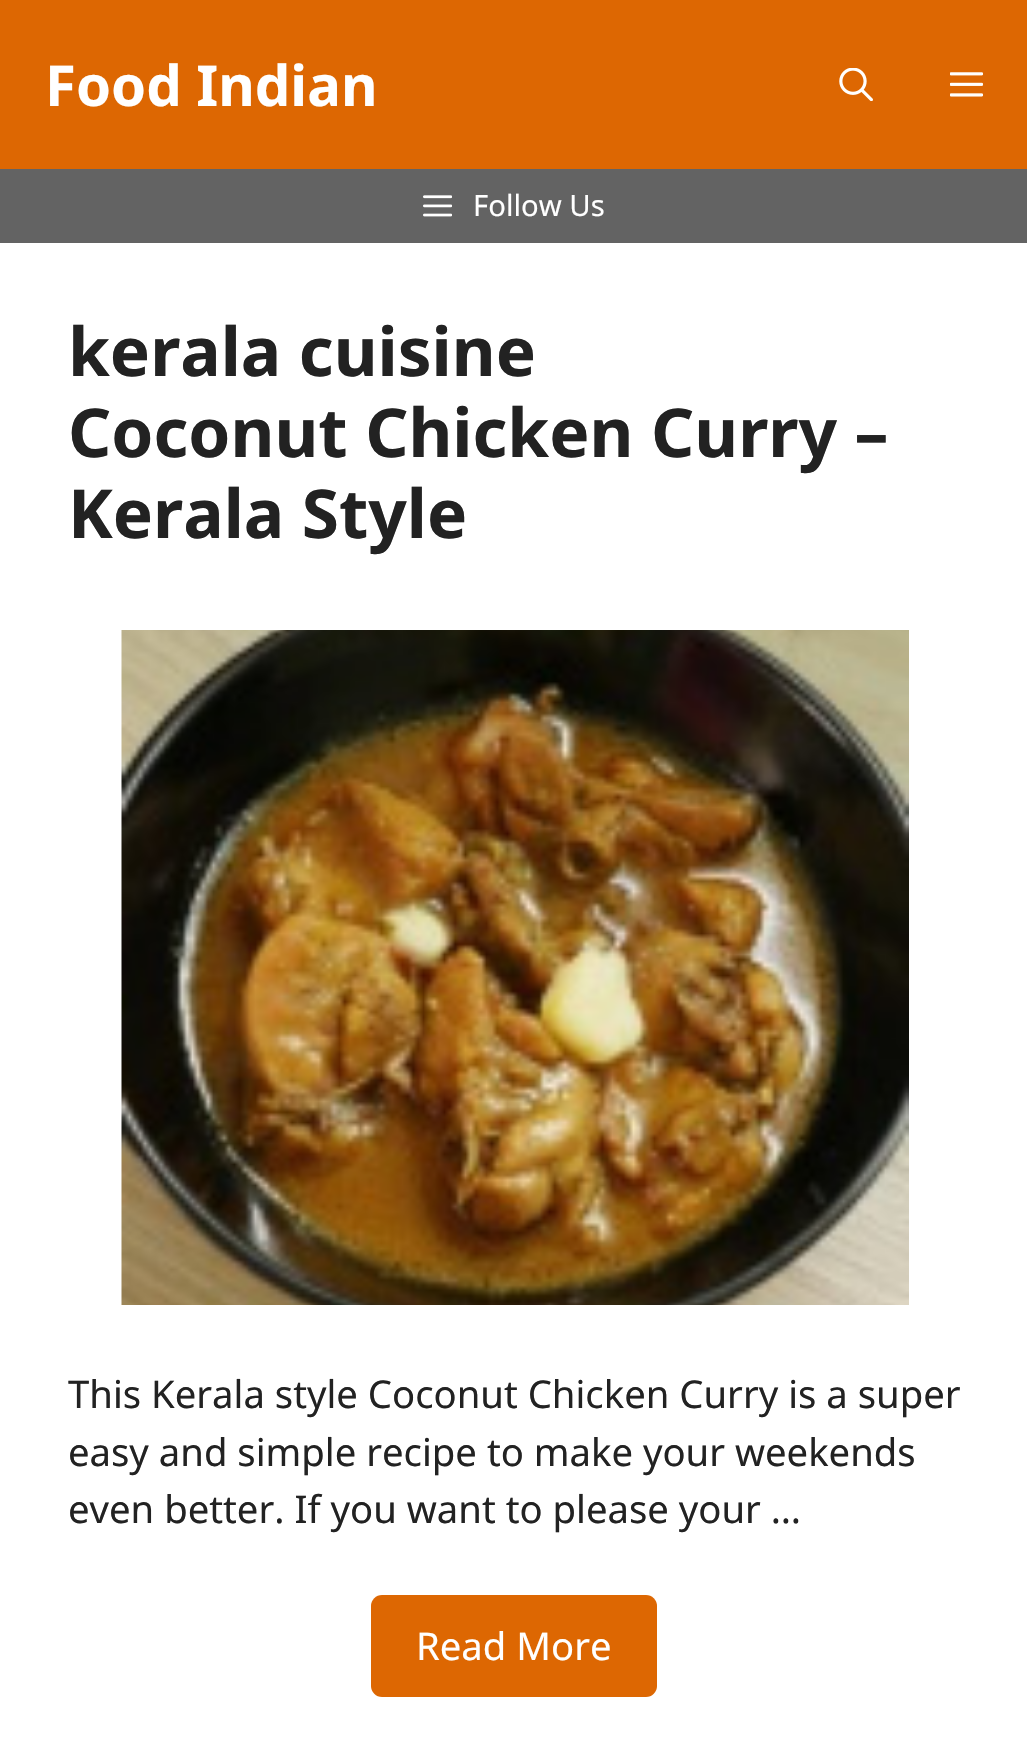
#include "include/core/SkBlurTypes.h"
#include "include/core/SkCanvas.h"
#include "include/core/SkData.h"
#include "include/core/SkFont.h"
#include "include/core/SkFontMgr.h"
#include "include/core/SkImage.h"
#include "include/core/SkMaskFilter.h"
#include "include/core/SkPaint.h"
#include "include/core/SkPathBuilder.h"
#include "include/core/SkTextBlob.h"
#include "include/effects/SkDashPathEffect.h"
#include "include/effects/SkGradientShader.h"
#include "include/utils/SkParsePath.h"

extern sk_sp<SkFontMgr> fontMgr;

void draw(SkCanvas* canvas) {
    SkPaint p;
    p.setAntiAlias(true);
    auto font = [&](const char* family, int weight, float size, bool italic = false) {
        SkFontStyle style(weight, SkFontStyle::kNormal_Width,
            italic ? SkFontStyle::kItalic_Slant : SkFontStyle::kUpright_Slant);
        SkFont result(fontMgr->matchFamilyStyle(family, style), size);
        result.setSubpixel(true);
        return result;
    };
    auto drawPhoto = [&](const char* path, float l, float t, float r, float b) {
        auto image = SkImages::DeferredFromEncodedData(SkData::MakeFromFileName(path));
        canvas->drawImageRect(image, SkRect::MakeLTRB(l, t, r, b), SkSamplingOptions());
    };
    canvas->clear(0xFFDD6702);
    auto font1 = font("Noto Sans", 700, 56.25f);
    p.setColor(0xFFFFFFFF);
    canvas->drawString("Food Indian", 45, 106, font1, p);
    drawPhoto("media/1.png", 839, 68, 873, 101);
    drawPhoto("media/2.png", 950, 72, 983, 97);
    p.setColor(0xFF636363);
    canvas->drawRect(SkRect::MakeLTRB(0, 169, 1027, 243), p);
    drawPhoto("media/3.png", 423, 195, 452, 217);
    auto font2 = font("Noto Sans", 400, 29.25f);
    p.setColor(0xFFFFFFFF);
    canvas->drawString("Follow Us", 473, 216, font2, p);
    canvas->drawRect(SkRect::MakeLTRB(0, 243, 1027, 1747), p);
    auto font3 = font("Noto Sans", 700, 67.5f);
    p.setColor(0xFF222222);
    {
        const struct { const char* s; float x, y; } items[] = {
            {"kerala cuisine", 68, 376},
            {"Coconut Chicken Curry –", 68, 457},
            {"Kerala Style", 68, 538},
        };
        for (auto [s, x, y] : items) {
            canvas->drawString(s, x, y, font3, p);
        }
    }
    drawPhoto("media/4.png", 121, 630, 909, 1305);
    auto font4 = font("Noto Sans", 400, 38.25f);
    {
        const struct { const char* s; float x, y; } items[] = {
            {"This Kerala style Coconut Chicken Curry is a super", 68, 1408},
            {"easy and simple recipe to make your weekends", 68, 1466},
            {"even better. If you want to please your …", 68, 1523},
        };
        for (auto [s, x, y] : items) {
            canvas->drawString(s, x, y, font4, p);
        }
    }
    p.setColor(0xFFDD6702);
    canvas->drawRoundRect(SkRect::MakeLTRB(371, 1595, 657, 1697), 11, 11, p);
    p.setColor(0xFFFFFFFF);
    canvas->drawString("Read More", 416, 1660, font4, p);
}
